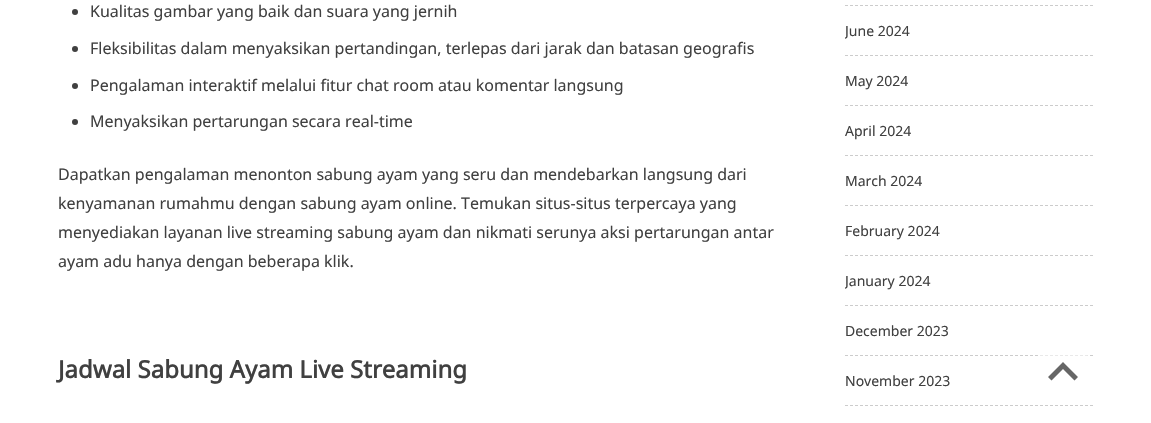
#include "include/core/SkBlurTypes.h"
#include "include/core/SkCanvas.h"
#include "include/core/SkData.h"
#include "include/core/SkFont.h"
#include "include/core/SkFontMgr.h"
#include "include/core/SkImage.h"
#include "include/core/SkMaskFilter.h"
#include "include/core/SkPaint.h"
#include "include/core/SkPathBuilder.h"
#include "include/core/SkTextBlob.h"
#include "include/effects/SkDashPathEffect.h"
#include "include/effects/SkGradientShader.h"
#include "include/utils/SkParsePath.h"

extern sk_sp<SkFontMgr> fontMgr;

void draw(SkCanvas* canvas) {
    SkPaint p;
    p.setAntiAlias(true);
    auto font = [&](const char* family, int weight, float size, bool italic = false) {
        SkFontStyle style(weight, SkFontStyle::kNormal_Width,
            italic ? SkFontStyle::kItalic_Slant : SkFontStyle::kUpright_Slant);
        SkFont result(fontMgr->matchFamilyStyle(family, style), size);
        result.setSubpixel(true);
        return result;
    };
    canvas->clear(0xFFFFFFFF);
    p.setColor(0xFF404040);
    canvas->drawCircle(75, 12, 3, p);
    auto font1 = font("Noto Sans", 400, 16);
    canvas->drawString("Kualitas gambar yang baik dan suara yang jernih", 90, 17, font1, p);
    canvas->drawCircle(75, 49, 3, p);
    canvas->drawString("Fleksibilitas dalam menyaksikan pertandingan, terlepas dari jarak dan batasan geografis", 90, 54, font1, p);
    canvas->drawCircle(75, 86, 3, p);
    canvas->drawString("Pengalaman interaktif melalui fitur chat room atau komentar langsung", 90, 91, font1, p);
    canvas->drawCircle(75, 122, 3, p);
    {
        const struct { const char* s; float x, y; } items[] = {
            {"Menyaksikan pertarungan secara real-time", 90, 127},
            {"Dapatkan pengalaman menonton sabung ayam yang seru dan mendebarkan langsung dari", 58, 180},
            {"kenyamanan rumahmu dengan sabung ayam online. Temukan situs-situs terpercaya yang", 58, 209},
            {"menyediakan layanan live streaming sabung ayam dan nikmati serunya aksi pertarungan antar", 58, 238},
            {"ayam adu hanya dengan beberapa klik.", 58, 267},
        };
        for (auto [s, x, y] : items) {
            canvas->drawString(s, x, y, font1, p);
        }
    }
    auto font2 = font("Noto Sans", 700, 24);
    canvas->drawString("Jadwal Sabung Ayam Live Streaming", 58, 378, font2, p);
    p.setStyle(SkPaint::kStroke_Style);
    p.setStrokeWidth(1);
    p.setColor(0xFFCCCCCC);
    p.setPathEffect(SkDashPathEffect::Make({{3, 2}}, 0));
    canvas->drawPath(SkPathBuilder().moveTo(845, 5.5f).lineTo(1093, 5.5f).detach(), p);
    p.setPathEffect(nullptr);
    canvas->save();
    canvas->clipRect(SkRect::MakeLTRB(845, 0, 1093, 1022));
    auto font3 = font("Noto Sans", 400, 14);
    p.setStyle(SkPaint::kFill_Style);
    p.setColor(0xFF404040);
    canvas->drawString("June 2024", 845, 36, font3, p);
    canvas->restore();
    p.setStyle(SkPaint::kStroke_Style);
    p.setColor(0xFFCCCCCC);
    p.setPathEffect(SkDashPathEffect::Make({{3, 2}}, 0));
    canvas->drawPath(SkPathBuilder().moveTo(845, 55.5f).lineTo(1093, 55.5f).detach(), p);
    p.setPathEffect(nullptr);
    p.setStyle(SkPaint::kFill_Style);
    p.setColor(0xFF404040);
    canvas->drawString("May 2024", 845, 86, font3, p);
    p.setStyle(SkPaint::kStroke_Style);
    p.setColor(0xFFCCCCCC);
    p.setPathEffect(SkDashPathEffect::Make({{3, 2}}, 0));
    canvas->drawPath(SkPathBuilder().moveTo(845, 105.5f).lineTo(1093, 105.5f).detach(), p);
    p.setPathEffect(nullptr);
    p.setStyle(SkPaint::kFill_Style);
    p.setColor(0xFF404040);
    canvas->drawString("April 2024", 845, 136, font3, p);
    p.setStyle(SkPaint::kStroke_Style);
    p.setColor(0xFFCCCCCC);
    p.setPathEffect(SkDashPathEffect::Make({{3, 2}}, 0));
    canvas->drawPath(SkPathBuilder().moveTo(845, 155.5f).lineTo(1093, 155.5f).detach(), p);
    p.setPathEffect(nullptr);
    p.setStyle(SkPaint::kFill_Style);
    p.setColor(0xFF404040);
    canvas->drawString("March 2024", 845, 186, font3, p);
    p.setStyle(SkPaint::kStroke_Style);
    p.setColor(0xFFCCCCCC);
    p.setPathEffect(SkDashPathEffect::Make({{3, 2}}, 0));
    canvas->drawPath(SkPathBuilder().moveTo(845, 205.5f).lineTo(1093, 205.5f).detach(), p);
    p.setPathEffect(nullptr);
    p.setStyle(SkPaint::kFill_Style);
    p.setColor(0xFF404040);
    canvas->drawString("February 2024", 845, 236, font3, p);
    p.setStyle(SkPaint::kStroke_Style);
    p.setColor(0xFFCCCCCC);
    p.setPathEffect(SkDashPathEffect::Make({{3, 2}}, 0));
    canvas->drawPath(SkPathBuilder().moveTo(845, 255.5f).lineTo(1093, 255.5f).detach(), p);
    p.setPathEffect(nullptr);
    canvas->save();
    canvas->clipRect(SkRect::MakeLTRB(845, 0, 1093, 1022));
    p.setStyle(SkPaint::kFill_Style);
    p.setColor(0xFF404040);
    canvas->drawString("January 2024", 845, 286, font3, p);
    canvas->restore();
    p.setStyle(SkPaint::kStroke_Style);
    p.setColor(0xFFCCCCCC);
    p.setPathEffect(SkDashPathEffect::Make({{3, 2}}, 0));
    canvas->drawPath(SkPathBuilder().moveTo(845, 305.5f).lineTo(1093, 305.5f).detach(), p);
    p.setPathEffect(nullptr);
    p.setStyle(SkPaint::kFill_Style);
    p.setColor(0xFF404040);
    canvas->drawString("December 2023", 845, 336, font3, p);
    p.setStyle(SkPaint::kStroke_Style);
    p.setColor(0xFFCCCCCC);
    p.setPathEffect(SkDashPathEffect::Make({{3, 2}}, 0));
    canvas->drawPath(SkPathBuilder().moveTo(845, 355.5f).lineTo(1093, 355.5f).detach(), p);
    p.setPathEffect(nullptr);
    p.setStyle(SkPaint::kFill_Style);
    p.setColor(0xFF404040);
    canvas->drawString("November 2023", 845, 386, font3, p);
    p.setStyle(SkPaint::kStroke_Style);
    p.setColor(0xFFCCCCCC);
    p.setPathEffect(SkDashPathEffect::Make({{3, 2}}, 0));
    canvas->drawPath(SkPathBuilder().moveTo(845, 405.5f).lineTo(1093, 405.5f).detach(), p);
    p.setPathEffect(nullptr);
    p.setStyle(SkPaint::kFill_Style);
    p.setColor(0x8FFFFFFF);
    canvas->drawCircle(1063, 372, 30, p);
    p.setColor(0xFF666666);
    canvas->drawPath(SkPathBuilder().moveTo(1051.5f, 380.5f).lineTo(1048, 377).lineTo(1063, 362).lineTo(1078, 377).lineTo(1074.5f, 380.5f).lineTo(1063, 369).close().detach(), p);
}
